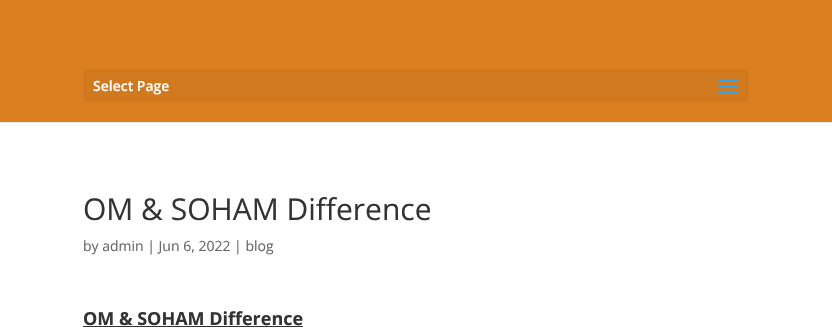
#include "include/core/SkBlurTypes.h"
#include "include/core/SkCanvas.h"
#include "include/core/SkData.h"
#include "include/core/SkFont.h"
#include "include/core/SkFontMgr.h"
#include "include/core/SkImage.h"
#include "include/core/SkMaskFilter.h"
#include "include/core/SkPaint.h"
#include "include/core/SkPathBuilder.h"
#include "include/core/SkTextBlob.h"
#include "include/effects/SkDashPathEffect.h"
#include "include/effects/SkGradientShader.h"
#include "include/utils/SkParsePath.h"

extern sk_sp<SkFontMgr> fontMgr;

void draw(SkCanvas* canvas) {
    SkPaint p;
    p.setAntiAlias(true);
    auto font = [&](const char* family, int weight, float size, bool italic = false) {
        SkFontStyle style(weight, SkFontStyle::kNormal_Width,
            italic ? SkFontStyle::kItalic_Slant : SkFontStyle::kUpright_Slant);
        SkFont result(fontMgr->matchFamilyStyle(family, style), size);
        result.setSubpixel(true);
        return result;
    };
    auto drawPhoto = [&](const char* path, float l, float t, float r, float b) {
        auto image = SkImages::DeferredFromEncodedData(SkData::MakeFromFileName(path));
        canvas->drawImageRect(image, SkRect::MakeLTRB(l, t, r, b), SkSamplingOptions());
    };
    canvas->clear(0xFFFFFFFF);
    p.setColor(0xFFE6E6E6);
    canvas->drawRect(SkRect::MakeLTRB(0, 122, 832, 123), p);
    p.setColor(0xFFDC7F20);
    canvas->drawRect(SkRect::MakeLTRB(0, 0, 832, 122), p);
    p.setColor(0xFFD1791E);
    canvas->drawRoundRect(SkRect::MakeLTRB(83, 69, 749, 102), 5, 5, p);
    auto font1 = font("Open Sans", 600, 14);
    p.setColor(0xFFFFFFFF);
    canvas->drawString("Select Page", 93, 91, font1, p);
    drawPhoto("media/1.png", 718, 79, 738, 93);
    auto font2 = font("Open Sans", 400, 30);
    p.setColor(0xFF333333);
    canvas->drawString("OM & SOHAM Difference", 83, 220, font2, p);
    auto font3 = font("Open Sans", 400, 14);
    p.setColor(0xFF666666);
    canvas->drawString("by admin | Jun 6, 2022 | blog", 83, 251, font3, p);
    auto font4 = font("Open Sans", 700, 18);
    p.setColor(0xFF333333);
    canvas->drawString("OM & SOHAM Difference", 83, 325, font4, p);
    canvas->drawRect(SkRect::MakeLTRB(83, 326, 303, 327), p);
}
